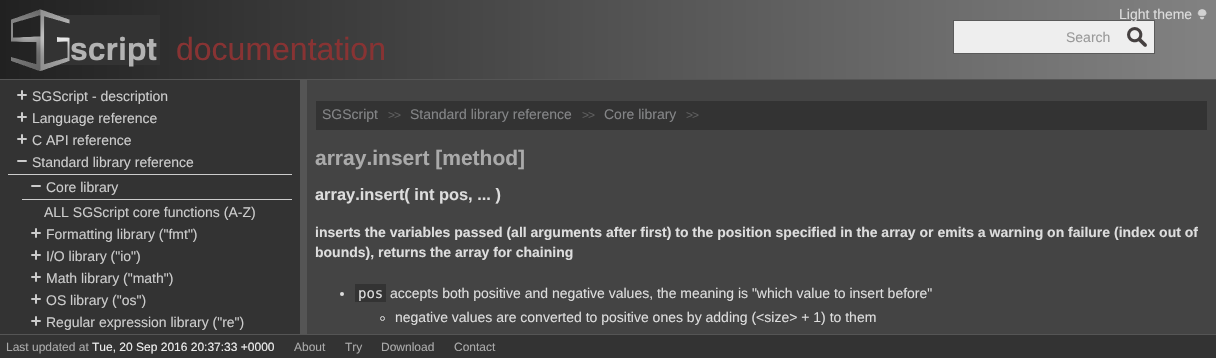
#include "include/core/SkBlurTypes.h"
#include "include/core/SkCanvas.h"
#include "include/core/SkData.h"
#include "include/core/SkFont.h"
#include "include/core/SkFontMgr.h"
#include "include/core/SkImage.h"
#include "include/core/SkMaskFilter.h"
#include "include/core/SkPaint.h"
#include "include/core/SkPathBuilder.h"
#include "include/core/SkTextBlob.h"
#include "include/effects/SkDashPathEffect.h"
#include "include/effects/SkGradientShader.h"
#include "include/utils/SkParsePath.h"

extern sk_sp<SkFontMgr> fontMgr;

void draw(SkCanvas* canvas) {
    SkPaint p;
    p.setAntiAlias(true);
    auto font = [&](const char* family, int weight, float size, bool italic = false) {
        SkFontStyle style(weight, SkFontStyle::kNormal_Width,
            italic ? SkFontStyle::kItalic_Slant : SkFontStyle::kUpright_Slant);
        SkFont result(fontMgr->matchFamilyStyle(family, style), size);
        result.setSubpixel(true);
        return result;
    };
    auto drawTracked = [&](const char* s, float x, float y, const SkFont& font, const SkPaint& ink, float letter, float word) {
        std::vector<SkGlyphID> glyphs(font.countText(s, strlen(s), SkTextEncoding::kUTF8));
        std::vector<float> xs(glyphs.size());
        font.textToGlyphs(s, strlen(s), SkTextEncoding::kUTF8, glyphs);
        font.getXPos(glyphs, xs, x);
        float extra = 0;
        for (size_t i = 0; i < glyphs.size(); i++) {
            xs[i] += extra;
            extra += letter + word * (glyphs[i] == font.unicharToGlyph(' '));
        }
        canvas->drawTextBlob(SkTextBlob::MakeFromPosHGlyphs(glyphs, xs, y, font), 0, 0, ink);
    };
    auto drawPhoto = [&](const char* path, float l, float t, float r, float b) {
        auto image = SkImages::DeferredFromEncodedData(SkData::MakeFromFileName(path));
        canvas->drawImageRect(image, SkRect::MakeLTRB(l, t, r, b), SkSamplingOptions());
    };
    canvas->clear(0xFF555555);
    {
        const SkColor colors[] = {0xFF212121, 0xFF828282};
        const float stops[] = {0, 1};
        const SkPoint ends[] = {{0, 40}, {1216, 39}};
        p.setShader(SkGradientShader::MakeLinear(ends, colors, stops, 2, SkTileMode::kClamp));
        p.setAlpha(255);
    }
    canvas->drawRect(SkRect::MakeLTRB(0, 0, 1216, 79), p);
    p.setShader(nullptr);
    p.setColor(0xFFEEEEEE);
    canvas->drawRect(SkRect::MakeLTRB(953.5f, 20.5f, 1154.5f, 53.5f), p);
    p.setStyle(SkPaint::kStroke_Style);
    p.setStrokeWidth(1);
    p.setColor(0xFF5A5A5A);
    canvas->drawRect(SkRect::MakeLTRB(953.5f, 20.5f, 1154.5f, 53.5f), p);
    auto font1 = font("Liberation Sans", 400, 14);
    p.setStyle(SkPaint::kFill_Style);
    p.setColor(0xFFDDDDDD);
    canvas->drawString("Light theme", 1119, 19, font1, p);
    drawPhoto("media/1.png", 1197, 9, 1207, 20);
    drawPhoto("media/2.png", 11, 9, 160, 71);
    auto font2 = font("Liberation Sans", 400, 32);
    p.setColor(0xFF883333);
    canvas->drawString("documentation", 176, 60, font2, p);
    p.setColor(0xFF999999);
    canvas->drawString("Search", 1066, 42, font1, p);
    drawPhoto("media/3.png", 1127, 27, 1147, 47);
    p.setColor(0xFF333333);
    canvas->drawRect(SkRect::MakeLTRB(0, 80, 300, 334), p);
    drawPhoto("media/4.png", 17, 90, 27, 100);
    p.setColor(0xFFCCCCCC);
    canvas->drawString("SGScript - description", 32, 101, font1, p);
    drawPhoto("media/4.png", 17, 112, 27, 122);
    canvas->drawString("Language reference", 32, 123, font1, p);
    drawPhoto("media/4.png", 17, 134, 27, 144);
    canvas->drawString("C API reference", 32, 145, font1, p);
    drawPhoto("media/5.png", 17, 160, 27, 162);
    canvas->drawString("Standard library reference", 32, 167, font1, p);
    canvas->drawRect(SkRect::MakeLTRB(8, 174, 292, 175), p);
    drawPhoto("media/5.png", 31, 185, 41, 187);
    canvas->drawString("Core library", 46, 192, font1, p);
    canvas->drawRect(SkRect::MakeLTRB(22, 199, 292, 200), p);
    canvas->drawString("ALL SGScript core functions (A-Z)", 44, 217, font1, p);
    drawPhoto("media/4.png", 31, 228, 41, 238);
    canvas->drawString("Formatting library (\"fmt\")", 46, 239, font1, p);
    drawPhoto("media/4.png", 31, 250, 41, 260);
    canvas->drawString("I/O library (\"io\")", 46, 261, font1, p);
    drawPhoto("media/4.png", 31, 272, 41, 282);
    canvas->drawString("Math library (\"math\")", 46, 283, font1, p);
    drawPhoto("media/4.png", 31, 294, 41, 304);
    canvas->drawString("OS library (\"os\")", 46, 305, font1, p);
    drawPhoto("media/4.png", 31, 316, 41, 326);
    canvas->drawString("Regular expression library (\"re\")", 46, 327, font1, p);
    p.setColor(0xFF444444);
    canvas->drawRect(SkRect::MakeLTRB(307, 80, 1216, 334), p);
    p.setColor(0xFF333333);
    canvas->drawRect(SkRect::MakeLTRB(316, 101, 1207, 130), p);
    p.setColor(0xFF848587);
    canvas->drawString("SGScript", 322, 119, font1, p);
    auto font3 = font("Liberation Sans", 400, 12);
    p.setColor(0xFF5E5E5E);
    drawTracked(">>", 388, 119, font3, p, -1, 0);
    p.setColor(0xFF848587);
    canvas->drawString("Standard library reference", 410, 119, font1, p);
    p.setColor(0xFF5E5E5E);
    drawTracked(">>", 582, 119, font3, p, -1, 0);
    p.setColor(0xFF848587);
    canvas->drawString("Core library", 604, 119, font1, p);
    p.setColor(0xFF5E5E5E);
    drawTracked(">>", 686, 119, font3, p, -1, 0);
    auto font4 = font("Liberation Sans", 700, 21);
    p.setColor(0xFFAAAAAA);
    canvas->drawString("array.insert [method]", 315, 165, font4, p);
    auto font5 = font("Liberation Sans", 700, 16.4f);
    p.setColor(0xFFDDDDDD);
    canvas->drawString("array.insert( int pos, ... )", 315, 200, font5, p);
    auto font6 = font("Liberation Sans", 700, 14);
    canvas->drawString("inserts the variables passed (all arguments after first) to the position specified in the array or emits a warning on failure (index out of", 315, 237, font6, p);
    canvas->drawString("bounds), returns the array for chaining", 315, 257, font6, p);
    canvas->drawCircle(342, 294, 2, p);
    p.setColor(0xFF333333);
    canvas->drawRect(SkRect::MakeLTRB(355, 284, 386, 302), p);
    auto font7 = font("DejaVu Sans Mono", 400, 14);
    p.setColor(0xFFDDDDDD);
    canvas->drawString("pos", 358, 298, font7, p);
    canvas->drawString("accepts both positive and negative values, the meaning is \"which value to insert before\"", 390, 298, font1, p);
    p.setStyle(SkPaint::kStroke_Style);
    canvas->drawCircle(382.5f, 318.5f, 2, p);
    p.setStyle(SkPaint::kFill_Style);
    canvas->drawString("negative values are converted to positive ones by adding (<size> + 1) to them", 395, 322, font1, p);
    p.setColor(0xFF333333);
    canvas->drawRect(SkRect::MakeLTRB(0, 335, 1216, 358), p);
    p.setColor(0xFFAAAAAA);
    canvas->drawString("Last updated at", 6, 351, font3, p);
    p.setColor(0xFFEEEEEE);
    canvas->drawString("Tue, 20 Sep 2016 20:37:33 +0000", 92, 351, font3, p);
    p.setColor(0xFFAAAAAA);
    {
        const struct { const char* s; float x, y; } items[] = {
            {"About", 294, 351},
            {"Try", 345, 351},
            {"Download", 381, 351},
            {"Contact", 454, 351},
        };
        for (auto [s, x, y] : items) {
            canvas->drawString(s, x, y, font3, p);
        }
    }
}
